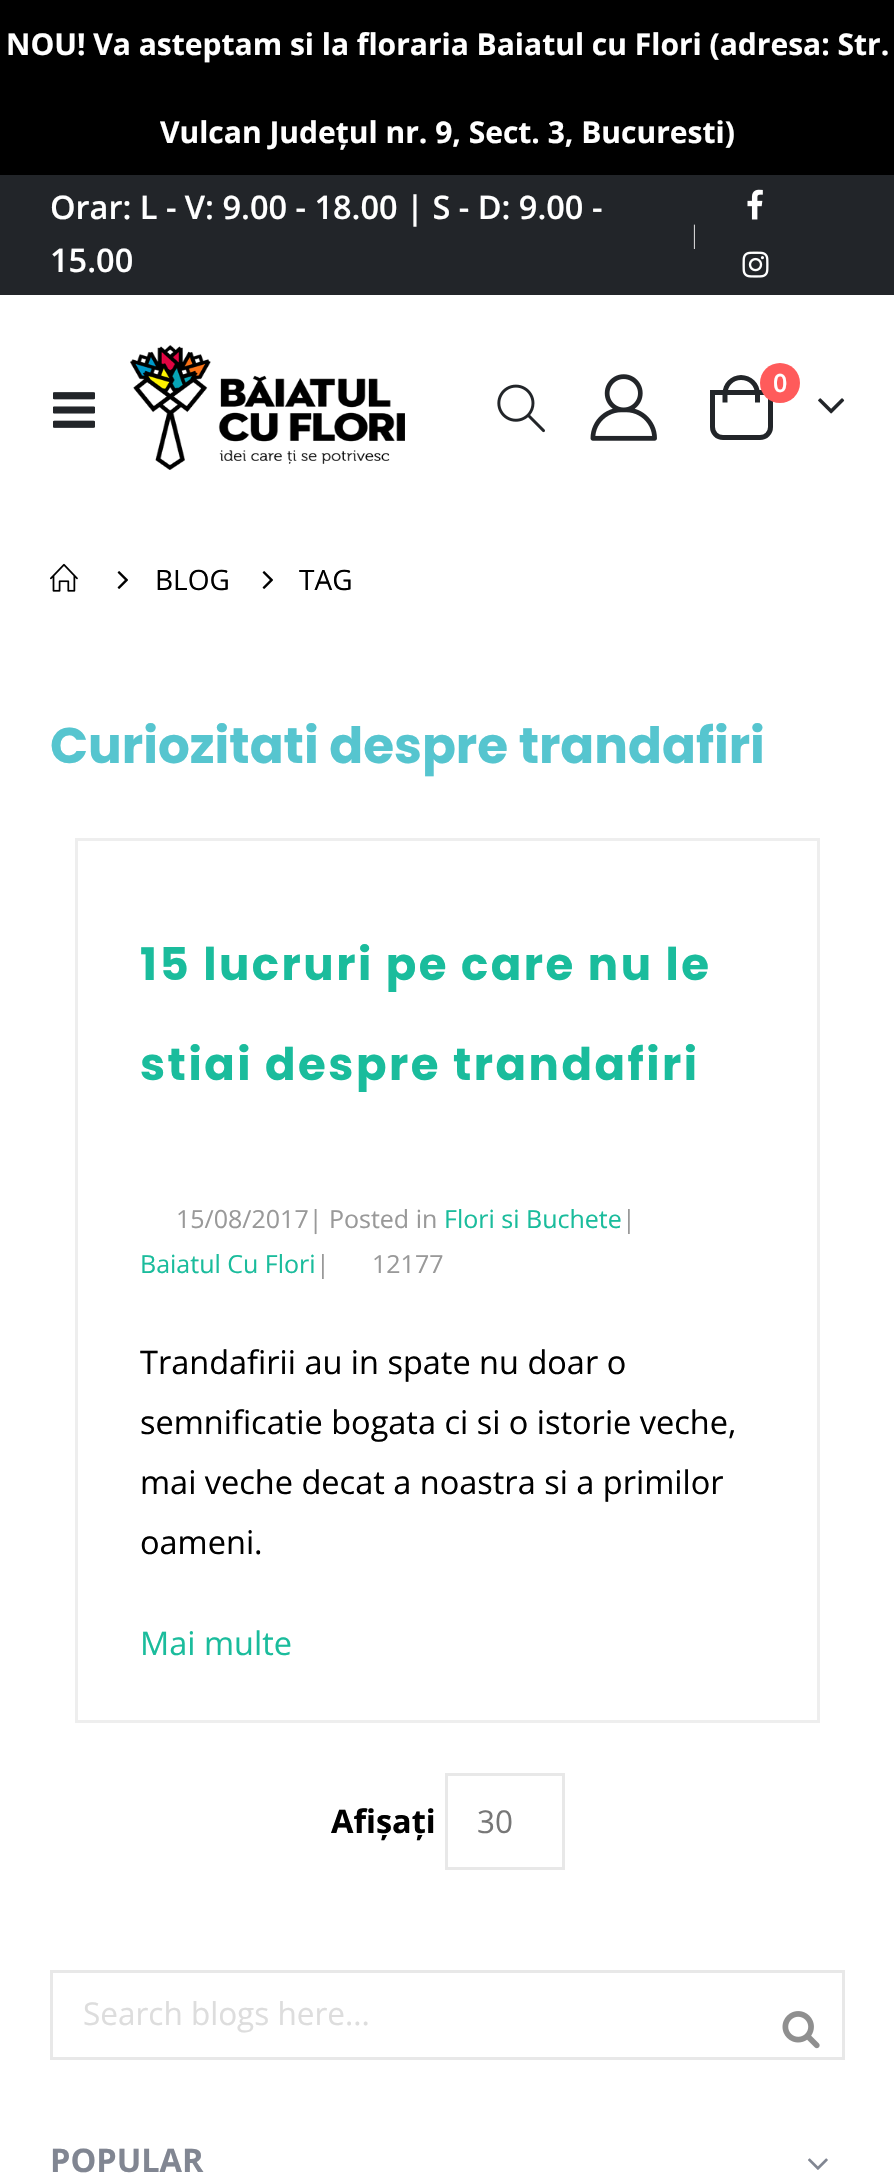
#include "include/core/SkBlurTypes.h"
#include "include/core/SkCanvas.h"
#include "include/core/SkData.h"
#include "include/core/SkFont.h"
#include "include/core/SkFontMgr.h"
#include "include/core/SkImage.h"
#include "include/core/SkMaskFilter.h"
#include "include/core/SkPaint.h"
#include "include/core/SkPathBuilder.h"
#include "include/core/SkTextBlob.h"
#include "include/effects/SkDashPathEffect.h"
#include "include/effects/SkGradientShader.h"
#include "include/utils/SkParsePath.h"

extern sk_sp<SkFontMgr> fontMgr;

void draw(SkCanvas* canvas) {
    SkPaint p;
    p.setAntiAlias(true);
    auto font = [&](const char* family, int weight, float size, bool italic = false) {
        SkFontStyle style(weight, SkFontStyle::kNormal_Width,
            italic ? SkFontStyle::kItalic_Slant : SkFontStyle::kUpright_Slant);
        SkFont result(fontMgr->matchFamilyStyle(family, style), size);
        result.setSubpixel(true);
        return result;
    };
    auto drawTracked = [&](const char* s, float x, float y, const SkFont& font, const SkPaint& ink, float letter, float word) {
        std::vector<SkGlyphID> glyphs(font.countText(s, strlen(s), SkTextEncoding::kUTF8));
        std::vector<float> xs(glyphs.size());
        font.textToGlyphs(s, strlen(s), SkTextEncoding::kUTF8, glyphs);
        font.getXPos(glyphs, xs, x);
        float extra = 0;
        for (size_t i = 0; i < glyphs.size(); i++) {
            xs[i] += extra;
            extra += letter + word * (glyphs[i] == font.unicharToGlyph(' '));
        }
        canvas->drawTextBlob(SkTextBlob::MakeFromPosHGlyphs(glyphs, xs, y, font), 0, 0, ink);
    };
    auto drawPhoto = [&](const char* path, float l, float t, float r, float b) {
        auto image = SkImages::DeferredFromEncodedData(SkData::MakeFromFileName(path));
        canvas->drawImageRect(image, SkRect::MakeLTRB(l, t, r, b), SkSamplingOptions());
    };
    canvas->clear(0xFFFFFFFF);
    p.setColor(0xFF000000);
    canvas->drawRect(SkRect::MakeLTRB(0, 0, 894, 175), p);
    auto font1 = font("Open Sans", 700, 30);
    p.setColor(0xFFFFFFFF);
    canvas->drawString("NOU! Va asteptam si la floraria Baiatul cu Flori (adresa: Str.", 6, 55, font1, p);
    canvas->drawString("Vulcan Județul nr. 9, Sect. 3, Bucuresti)", 160, 143, font1, p);
    p.setColor(0xFF222529);
    canvas->drawRect(SkRect::MakeLTRB(0, 175, 894, 295), p);
    auto font2 = font("Open Sans", 600, 32.5f);
    p.setColor(0xFFFFFFFF);
    canvas->drawString("Orar: L - V: 9.00 - 18.00 | S - D: 9.00 -", 50, 219, font2, p);
    canvas->drawString("15.00", 50, 272, font2, p);
    auto font3 = font("Open Sans", 300, 24);
    p.setColor(0xFFD3D3D4);
    canvas->drawString("|", 688, 243, font3, p);
    drawPhoto("media/1.png", 747, 189, 763, 220);
    drawPhoto("media/2.png", 742, 251, 769, 278);
    drawPhoto("media/3.png", 53, 392, 95, 428);
    drawPhoto("media/4.png", 130, 345, 405, 470);
    drawPhoto("media/5.png", 497, 384, 545, 433);
    drawPhoto("media/6.png", 590, 374, 657, 441);
    p.setStyle(SkPaint::kStroke_Style);
    p.setStrokeWidth(5);
    p.setColor(0xFF222529);
    canvas->drawPath(SkPathBuilder().moveTo(712.5f, 392.5f).lineTo(770.5f, 392.5f).lineTo(770.5f, 427).cubicTo(770.5f, 433, 766, 437.5f, 760, 437.5f).lineTo(723, 437.5f).cubicTo(717, 437.5f, 712.5f, 433, 712.5f, 427).close().detach(), p);
    p.setStyle(SkPaint::kFill_Style);
    canvas->drawPath(SkPathBuilder(SkPathFillType::kEvenOdd).moveTo(741, 375).cubicTo(751.5f, 375, 760, 383.5f, 760, 394).lineTo(760, 402.5f).lineTo(722.5f, 402.5f).lineTo(722.5f, 394).cubicTo(722.5f, 383.5f, 731, 375, 741, 375).close().moveTo(741, 380).cubicTo(749, 380, 755, 386, 755, 394).lineTo(755, 402.5f).lineTo(727.5f, 402.5f).lineTo(727.5f, 394).cubicTo(727.5f, 386, 733.5f, 380, 741, 380).close().detach(), p);
    p.setColor(0xFFFF5B5B);
    canvas->drawCircle(780, 383, 20, p);
    auto font4 = font("Open Sans", 600, 25);
    p.setColor(0xFFFFFFFF);
    canvas->drawString("0", 773, 392, font4, p);
    drawPhoto("media/7.png", 818, 398, 845, 414);
    drawPhoto("media/8.png", 50, 563, 78, 592);
    drawPhoto("media/9.png", 117, 571, 128, 589);
    auto font5 = font("Open Sans", 400, 28);
    p.setColor(0xFF000000);
    canvas->drawString("BLOG", 155, 590, font5, p);
    drawPhoto("media/9.png", 262, 571, 273, 589);
    canvas->drawString("TAG", 299, 590, font5, p);
    auto font6 = font("Poppins", 700, 50);
    p.setColor(0xFF56C5CF);
    canvas->drawString("Curiozitati despre trandafiri", 50, 763, font6, p);
    p.setStyle(SkPaint::kStroke_Style);
    p.setStrokeWidth(3);
    p.setColor(0xFFEEEEEE);
    canvas->drawRect(SkRect::MakeLTRB(76.5f, 839.5f, 818.5f, 1721.5f), p);
    auto font7 = font("Poppins", 700, 45);
    p.setStyle(SkPaint::kFill_Style);
    p.setColor(0xFF1ABC9C);
    drawTracked("15 lucruri pe care nu le", 140, 980, font7, p, 2.5f, 0);
    drawTracked("stiai despre trandafiri", 140, 1080, font7, p, 2.5f, 0);
    auto font8 = font("Open Sans", 400, 25);
    p.setColor(0xFF999999);
    canvas->drawString("15/08/2017| Posted in", 176, 1228, font8, p);
    p.setColor(0xFF1ABC9C);
    canvas->drawString("Flori si Buchete", 444, 1228, font8, p);
    p.setColor(0xFF999999);
    canvas->drawString("|", 622, 1228, font8, p);
    p.setColor(0xFF1ABC9C);
    canvas->drawString("Baiatul Cu Flori", 140, 1273, font8, p);
    p.setColor(0xFF999999);
    canvas->drawString("|", 316, 1273, font8, p);
    canvas->drawString("12177", 372, 1273, font8, p);
    auto font9 = font("Open Sans", 400, 32.5f);
    p.setColor(0xFF000000);
    {
        const struct { const char* s; float x, y; } items[] = {
            {"Trandafirii au in spate nu doar o", 140, 1374},
            {"semnificatie bogata ci si o istorie veche,", 140, 1434},
            {"mai veche decat a noastra si a primilor", 140, 1494},
            {"oameni.", 140, 1554},
        };
        for (auto [s, x, y] : items) {
            canvas->drawString(s, x, y, font9, p);
        }
    }
    p.setColor(0xFF1ABC9C);
    canvas->drawString("Mai multe", 140, 1655, font9, p);
    auto font10 = font("Open Sans", 700, 32.5f);
    p.setColor(0xFF000000);
    canvas->drawString("Afișați", 331, 1833, font10, p);
    p.setStyle(SkPaint::kStroke_Style);
    p.setColor(0xFFE8E8E8);
    canvas->drawRect(SkRect::MakeLTRB(446.5f, 1774.5f, 563.5f, 1868.5f), p);
    auto font11 = font("Open Sans", 400, 31.5f);
    p.setStyle(SkPaint::kFill_Style);
    p.setColor(0xFF777777);
    canvas->drawString("30", 477, 1833, font11, p);
    p.setStyle(SkPaint::kStroke_Style);
    p.setColor(0xFFE8E8E8);
    canvas->drawRect(SkRect::MakeLTRB(51.5f, 1971.5f, 843.5f, 2058.5f), p);
    p.setStyle(SkPaint::kFill_Style);
    p.setColor(0xFFDDDDDD);
    canvas->drawString("Search blogs here...", 83, 2025, font11, p);
    drawPhoto("media/10.png", 782, 2011, 820, 2049);
    p.setColor(0xFF818692);
    canvas->drawString("POPULAR", 50, 2172, font10, p);
    drawPhoto("media/11.png", 808, 2158, 828, 2170);
}
